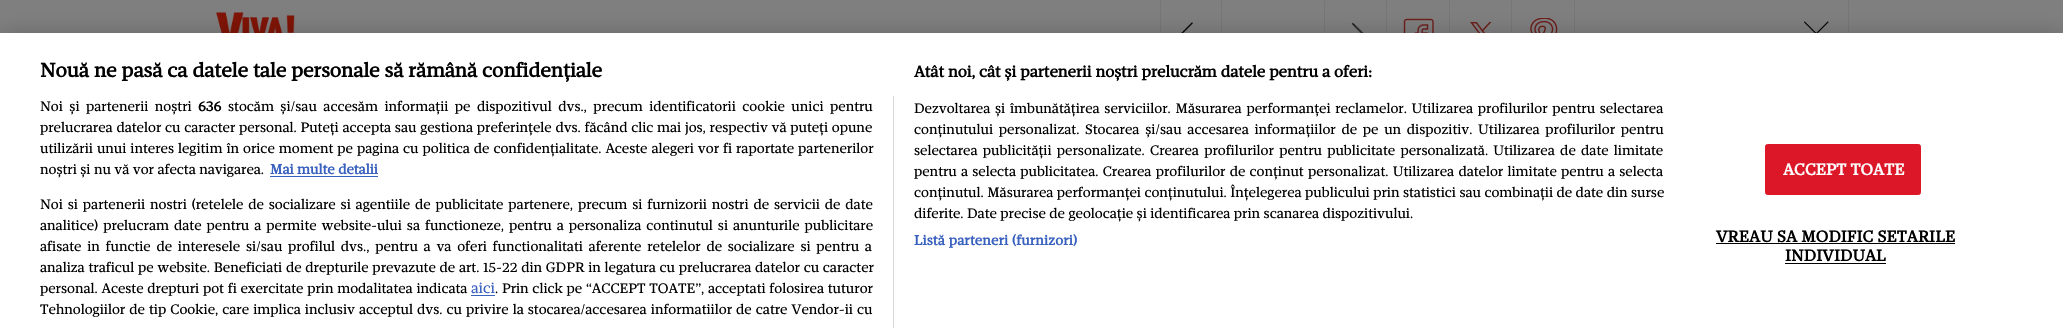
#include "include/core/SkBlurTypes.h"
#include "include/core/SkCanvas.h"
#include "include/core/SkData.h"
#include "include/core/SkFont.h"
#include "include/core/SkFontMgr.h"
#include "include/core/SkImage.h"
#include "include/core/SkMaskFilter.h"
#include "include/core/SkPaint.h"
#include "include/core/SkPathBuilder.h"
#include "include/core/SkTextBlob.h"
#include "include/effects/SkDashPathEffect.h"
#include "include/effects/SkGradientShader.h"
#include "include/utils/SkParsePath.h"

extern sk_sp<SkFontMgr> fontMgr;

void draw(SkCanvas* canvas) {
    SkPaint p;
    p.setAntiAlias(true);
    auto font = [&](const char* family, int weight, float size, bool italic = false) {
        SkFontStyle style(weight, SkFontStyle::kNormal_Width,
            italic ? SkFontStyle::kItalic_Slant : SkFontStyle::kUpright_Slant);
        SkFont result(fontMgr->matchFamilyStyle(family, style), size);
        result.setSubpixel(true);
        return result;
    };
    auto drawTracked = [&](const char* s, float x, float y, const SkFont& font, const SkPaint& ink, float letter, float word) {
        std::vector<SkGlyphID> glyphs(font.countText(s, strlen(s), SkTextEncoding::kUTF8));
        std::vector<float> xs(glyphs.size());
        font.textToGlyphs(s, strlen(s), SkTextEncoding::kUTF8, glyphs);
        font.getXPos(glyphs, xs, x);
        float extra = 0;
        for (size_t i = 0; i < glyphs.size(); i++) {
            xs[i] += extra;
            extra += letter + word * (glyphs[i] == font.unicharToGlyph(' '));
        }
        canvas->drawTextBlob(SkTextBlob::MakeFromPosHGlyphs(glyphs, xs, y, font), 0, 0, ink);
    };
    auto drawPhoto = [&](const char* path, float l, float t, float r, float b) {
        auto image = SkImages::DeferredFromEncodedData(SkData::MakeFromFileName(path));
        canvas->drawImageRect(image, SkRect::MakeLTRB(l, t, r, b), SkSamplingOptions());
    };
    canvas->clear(0xFF808080);
    drawPhoto("media/1.png", 216, 12, 295, 33);
    p.setColor(0xFF777777);
    canvas->drawRect(SkRect::MakeLTRB(1221, 0, 1222, 33), p);
    canvas->drawRect(SkRect::MakeLTRB(1160, 0, 1161, 33), p);
    drawPhoto("media/2.png", 1181, 22, 1193, 33);
    canvas->drawRect(SkRect::MakeLTRB(1324, 0, 1325, 33), p);
    drawPhoto("media/3.png", 1351, 22, 1364, 33);
    canvas->drawRect(SkRect::MakeLTRB(1386, 0, 1387, 33), p);
    drawPhoto("media/4.png", 1403, 18, 1434, 33);
    canvas->drawRect(SkRect::MakeLTRB(1449, 0, 1450, 33), p);
    drawPhoto("media/5.png", 1470, 22, 1492, 33);
    canvas->drawRect(SkRect::MakeLTRB(1511, 0, 1512, 33), p);
    drawPhoto("media/6.png", 1530, 18, 1558, 33);
    canvas->drawRect(SkRect::MakeLTRB(1848, 0, 1849, 33), p);
    canvas->drawRect(SkRect::MakeLTRB(1574, 0, 1575, 33), p);
    drawPhoto("media/7.png", 1804, 21, 1829, 33);
    p.setColor(0x33000000);
    p.setMaskFilter(SkMaskFilter::MakeBlur(kNormal_SkBlurStyle, 11));
    canvas->drawRect(SkRect::MakeLTRB(0, 33, 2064, 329), p);
    p.setMaskFilter(nullptr);
    p.setColor(0xFFFFFFFF);
    canvas->drawRect(SkRect::MakeLTRB(0, 33, 2063, 328), p);
    auto font1 = font("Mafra", 700, 20);
    p.setColor(0xFF000000);
    canvas->drawString("Nouă ne pasă ca datele tale personale să rămână confidențiale", 40, 77, font1, p);
    auto font2 = font("Mafra", 700, 16);
    canvas->drawString("Atât noi, cât și partenerii noștri prelucrăm datele pentru a oferi:", 914, 77, font2, p);
    auto font3 = font("Mafra", 400, 14);
    drawTracked("Dezvoltarea și îmbunătățirea serviciilor. Măsurarea performanței reclamelor. Utilizarea profilurilor pentru selectarea", 914, 113, font3, p, 0, 1.25f);
    drawTracked("conținutului personalizat. Stocarea și/sau accesarea informațiilor de pe un dispozitiv. Utilizarea profilurilor pentru", 914, 134, font3, p, 0, 2.25f);
    drawTracked("selectarea publicității personalizate. Crearea profilurilor pentru publicitate personalizată. Utilizarea de date limitate", 914, 155, font3, p, 0, 1.8f);
    drawTracked("pentru a selecta publicitatea. Crearea profilurilor de conținut personalizat. Utilizarea datelor limitate pentru a selecta", 914, 176, font3, p, 0, 0.75f);
    canvas->drawString("conținutul. Măsurarea performanței conținutului. Înțelegerea publicului prin statistici sau combinații de date din surse", 914, 197, font3, p);
    canvas->drawString("diferite. Date precise de geolocație și identificarea prin scanarea dispozitivului.", 914, 218, font3, p);
    auto font4 = font("Mafra", 700, 14);
    p.setColor(0xFF3860BE);
    drawTracked("Listă parteneri (furnizori)", 914, 245, font4, p, 0.15f, 0);
    p.setColor(0xFFD8D8D8);
    canvas->drawRect(SkRect::MakeLTRB(893, 96, 894, 328), p);
    p.setColor(0xFF000000);
    drawTracked("Noi și partenerii noștri", 40, 111, font3, p, 0, 3);
    canvas->drawString("636", 198, 111, font4, p);
    drawTracked("stocăm și/sau accesăm informații pe dispozitivul dvs., precum identificatorii cookie unici pentru", 228, 111, font3, p, 0, 3);
    drawTracked("prelucrarea datelor cu caracter personal. Puteți accepta sau gestiona preferințele dvs. făcând clic mai jos, respectiv vă puteți opune", 40, 132, font3, p, 0, 0.25f);
    drawTracked("utilizării unui interes legitim în orice moment pe pagina cu politica de confidențialitate. Aceste alegeri vor fi raportate partenerilor", 40, 153, font3, p, 0, 0.5f);
    canvas->drawString("noștri și nu vă vor afecta navigarea.", 40, 174, font3, p);
    p.setColor(0xFF3860BE);
    canvas->drawString("Mai multe detalii", 270, 174, font4, p);
    canvas->drawRect(SkRect::MakeLTRB(270, 176, 378, 177), p);
    p.setColor(0xFF000000);
    drawTracked("Noi si partenerii nostri (retelele de socializare si agentiile de publicitate partenere, precum si furnizorii nostri de servicii de date", 40, 209, font3, p, 0, 1.4f);
    drawTracked("analitice) prelucram date pentru a permite website-ului sa functioneze, pentru a personaliza continutul si anunturile publicitare", 40, 230, font3, p, 0, 1.5f);
    drawTracked("afisate in functie de interesele si/sau profilul dvs., pentru a va oferi functionalitati aferente retelelor de socializare si pentru a", 40, 251, font3, p, 0, 2.25f);
    drawTracked("analiza traficul pe website. Beneficiati de drepturile prevazute de art. 15-22 din GDPR in legatura cu prelucrarea datelor cu caracter", 40, 272, font3, p, 0, 0.25f);
    drawTracked("personal. Aceste drepturi pot fi exercitate prin modalitatea indicata", 40, 293, font3, p, 0, 0.25f);
    auto font5 = font("Mafra", 400, 15);
    p.setColor(0xFF3860BE);
    canvas->drawString("aici", 471, 293, font5, p);
    canvas->drawRect(SkRect::MakeLTRB(471, 295, 495, 296), p);
    p.setColor(0xFF000000);
    drawTracked(". Prin click pe “ACCEPT TOATE”, acceptati folosirea tuturor", 495, 293, font3, p, 0, 0.25f);
    drawTracked("Tehnologiilor de tip Cookie, care implica inclusiv acceptul dvs. cu privire la stocarea/accesarea informatiilor de catre Vendor-ii cu", 40, 314, font3, p, 0, 0.6f);
    p.setColor(0xFFDC1728);
    canvas->drawRoundRect(SkRect::MakeLTRB(1765.5f, 144.5f, 1920.5f, 194.5f), 2, 2, p);
    p.setStyle(SkPaint::kStroke_Style);
    p.setStrokeWidth(1);
    canvas->drawRoundRect(SkRect::MakeLTRB(1765.5f, 144.5f, 1920.5f, 194.5f), 2, 2, p);
    auto font6 = font("Mafra", 700, 16.25f);
    p.setStyle(SkPaint::kFill_Style);
    p.setColor(0xFFFFFFFF);
    drawTracked("ACCEPT TOATE", 1783, 175, font6, p, 0.15f, 0);
    p.setColor(0xFF000000);
    drawTracked("VREAU SA MODIFIC SETARILE", 1716, 242, font6, p, 0.15f, 0);
    canvas->drawRect(SkRect::MakeLTRB(1716, 243, 1955, 244), p);
    drawTracked("INDIVIDUAL", 1785, 261, font6, p, 0.15f, 0);
    canvas->drawRect(SkRect::MakeLTRB(1785, 263, 1886, 264), p);
}
